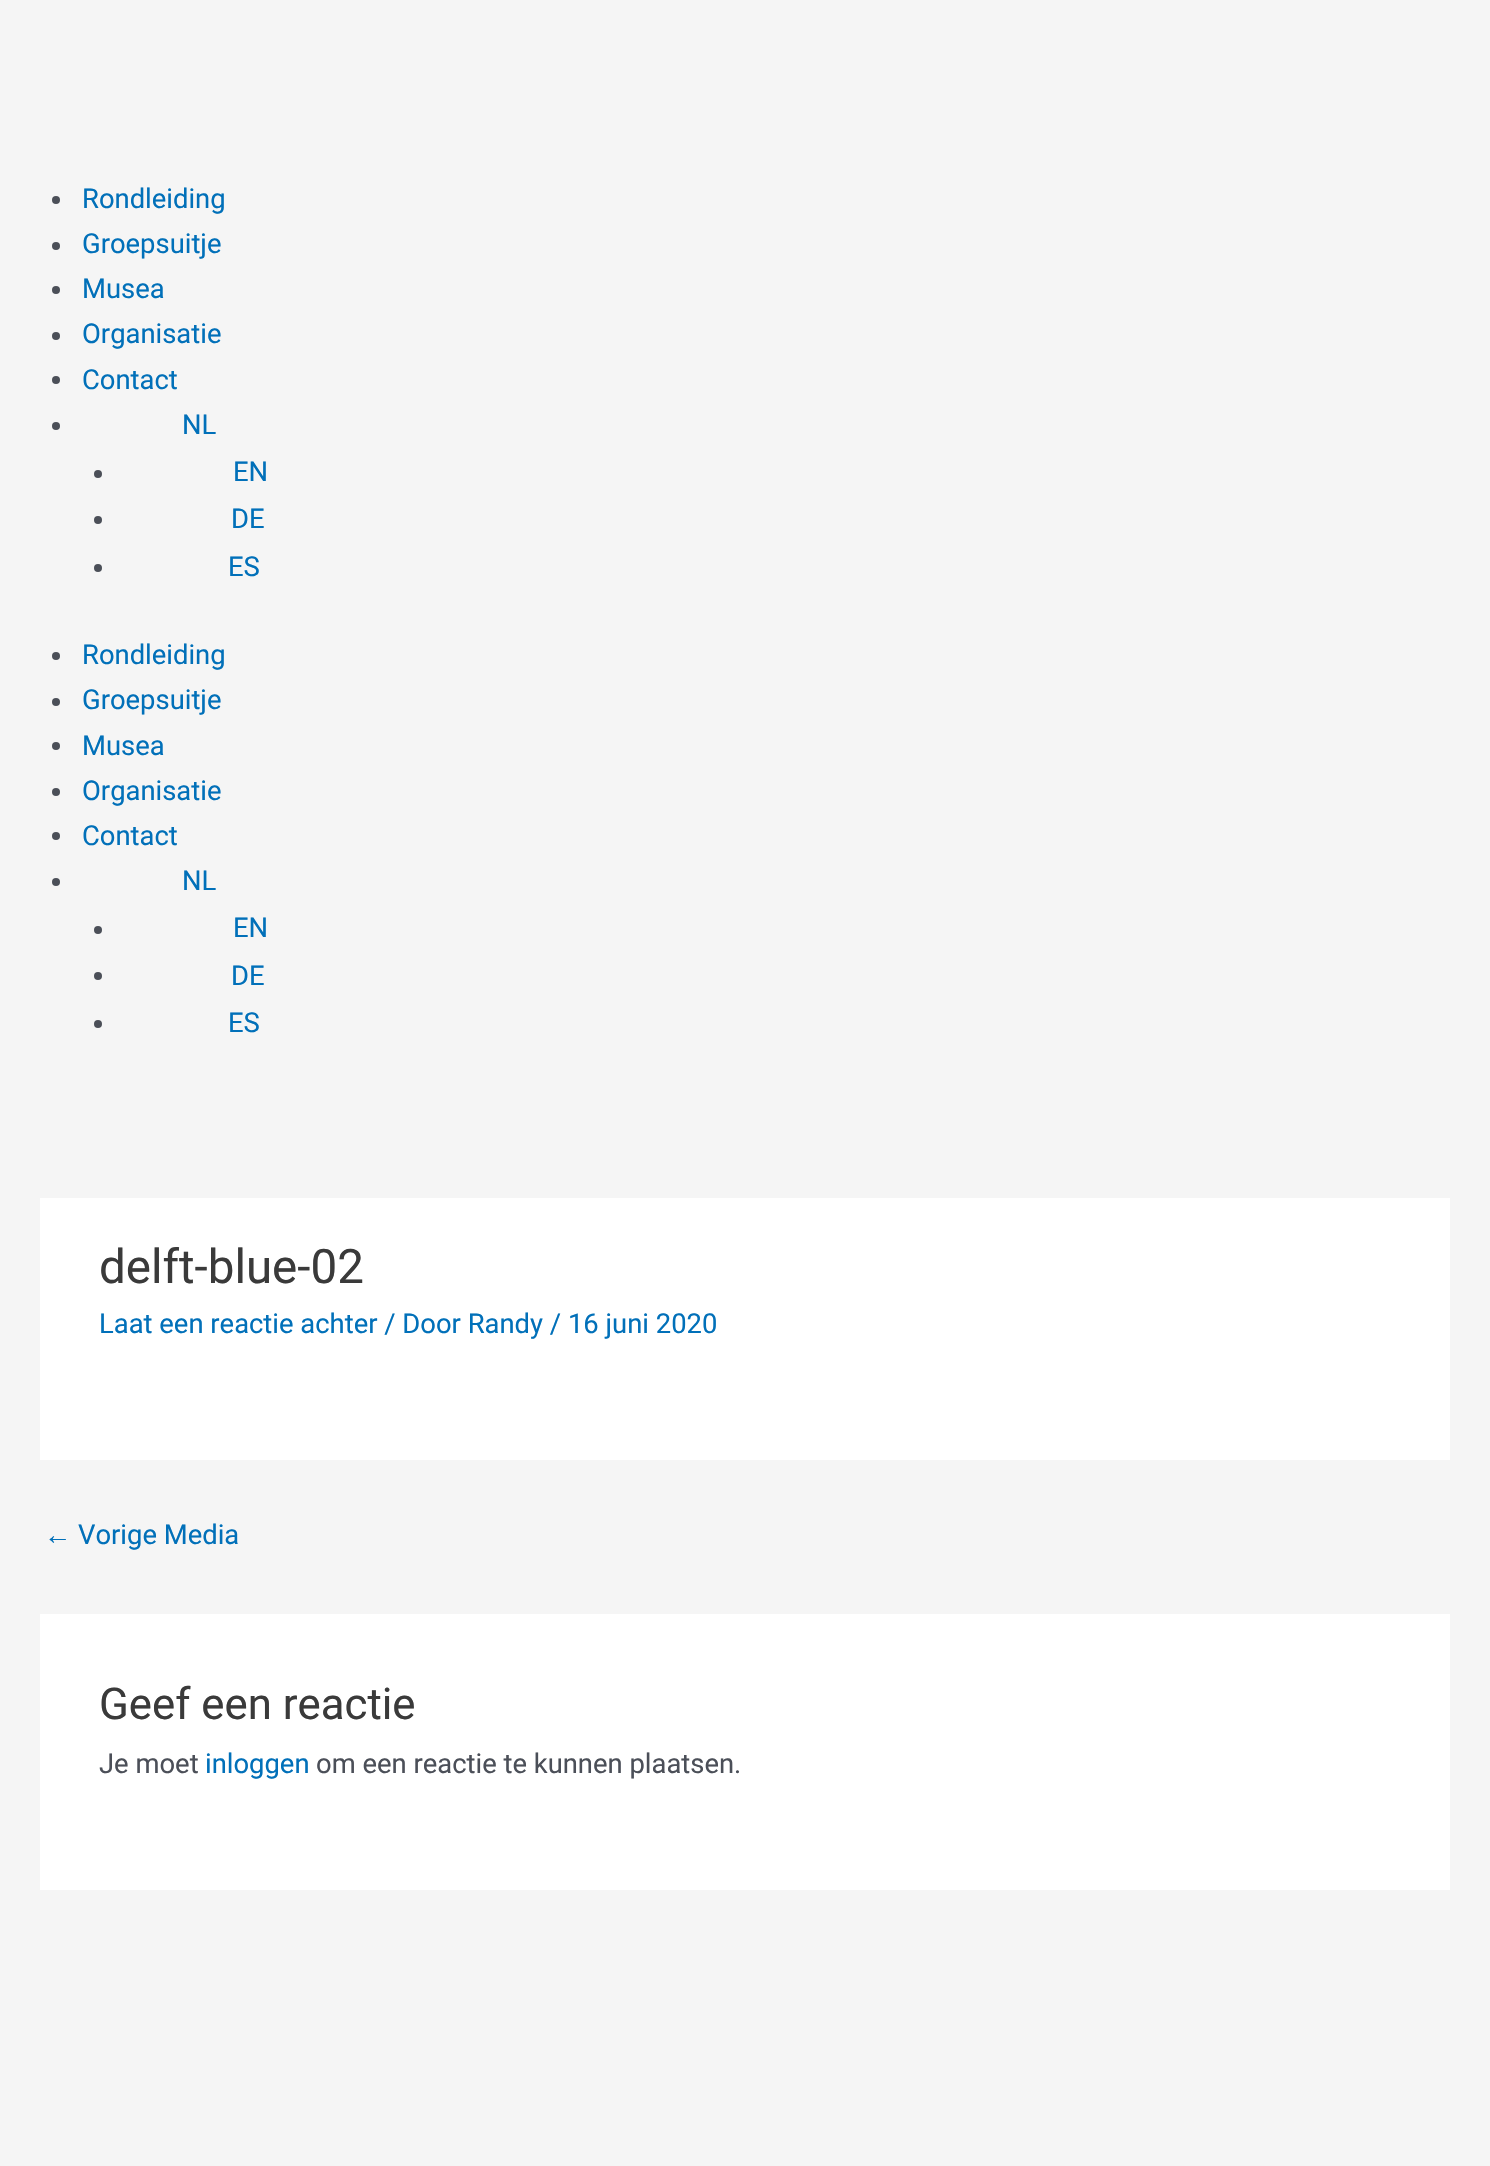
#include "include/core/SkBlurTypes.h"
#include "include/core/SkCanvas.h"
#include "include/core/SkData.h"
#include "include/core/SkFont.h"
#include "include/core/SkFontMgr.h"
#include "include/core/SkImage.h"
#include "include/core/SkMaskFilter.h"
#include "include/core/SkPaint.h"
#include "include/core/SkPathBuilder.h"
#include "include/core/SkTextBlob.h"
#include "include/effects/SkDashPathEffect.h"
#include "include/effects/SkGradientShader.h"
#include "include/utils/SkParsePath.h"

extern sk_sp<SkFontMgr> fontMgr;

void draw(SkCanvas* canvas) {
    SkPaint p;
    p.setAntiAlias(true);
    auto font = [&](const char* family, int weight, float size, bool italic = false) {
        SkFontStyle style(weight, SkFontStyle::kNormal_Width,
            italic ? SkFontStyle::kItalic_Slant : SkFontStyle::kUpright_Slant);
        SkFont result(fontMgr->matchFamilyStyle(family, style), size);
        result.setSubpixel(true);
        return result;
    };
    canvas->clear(0xFFF5F5F5);
    p.setColor(0xFF4B4F58);
    canvas->drawCircle(56, 200, 4, p);
    auto font1 = font("Roboto", 400, 27.4f);
    p.setColor(0xFF0170B9);
    canvas->drawString("Rondleiding", 82, 208, font1, p);
    p.setColor(0xFF4B4F58);
    canvas->drawCircle(56, 246, 4, p);
    p.setColor(0xFF0170B9);
    canvas->drawString("Groepsuitje", 82, 253, font1, p);
    p.setColor(0xFF4B4F58);
    canvas->drawCircle(56, 290, 4, p);
    p.setColor(0xFF0170B9);
    canvas->drawString("Musea", 82, 298, font1, p);
    p.setColor(0xFF4B4F58);
    canvas->drawCircle(56, 336, 4, p);
    p.setColor(0xFF0170B9);
    canvas->drawString("Organisatie", 82, 343, font1, p);
    p.setColor(0xFF4B4F58);
    canvas->drawCircle(56, 380, 4, p);
    p.setColor(0xFF0170B9);
    canvas->drawString("Contact", 82, 389, font1, p);
    p.setColor(0xFF4B4F58);
    canvas->drawCircle(56, 426, 4, p);
    p.setColor(0xFF0170B9);
    canvas->drawString("NL", 182, 434, font1, p);
    p.setColor(0xFF4B4F58);
    canvas->drawCircle(98, 474, 4, p);
    p.setColor(0xFF0170B9);
    canvas->drawString("EN", 233, 481, font1, p);
    p.setColor(0xFF4B4F58);
    canvas->drawCircle(98, 520, 4, p);
    p.setColor(0xFF0170B9);
    canvas->drawString("DE", 231, 528, font1, p);
    p.setColor(0xFF4B4F58);
    canvas->drawCircle(98, 568, 4, p);
    p.setColor(0xFF0170B9);
    canvas->drawString("ES", 228, 576, font1, p);
    p.setColor(0xFF4B4F58);
    canvas->drawCircle(56, 656, 4, p);
    p.setColor(0xFF0170B9);
    canvas->drawString("Rondleiding", 82, 664, font1, p);
    p.setColor(0xFF4B4F58);
    canvas->drawCircle(56, 702, 4, p);
    p.setColor(0xFF0170B9);
    canvas->drawString("Groepsuitje", 82, 709, font1, p);
    p.setColor(0xFF4B4F58);
    canvas->drawCircle(56, 746, 4, p);
    p.setColor(0xFF0170B9);
    canvas->drawString("Musea", 82, 755, font1, p);
    p.setColor(0xFF4B4F58);
    canvas->drawCircle(56, 792, 4, p);
    p.setColor(0xFF0170B9);
    canvas->drawString("Organisatie", 82, 800, font1, p);
    p.setColor(0xFF4B4F58);
    canvas->drawCircle(56, 836, 4, p);
    p.setColor(0xFF0170B9);
    canvas->drawString("Contact", 82, 845, font1, p);
    p.setColor(0xFF4B4F58);
    canvas->drawCircle(56, 882, 4, p);
    p.setColor(0xFF0170B9);
    canvas->drawString("NL", 182, 890, font1, p);
    p.setColor(0xFF4B4F58);
    canvas->drawCircle(98, 930, 4, p);
    p.setColor(0xFF0170B9);
    canvas->drawString("EN", 233, 937, font1, p);
    p.setColor(0xFF4B4F58);
    canvas->drawCircle(98, 976, 4, p);
    p.setColor(0xFF0170B9);
    canvas->drawString("DE", 231, 985, font1, p);
    p.setColor(0xFF4B4F58);
    canvas->drawCircle(98, 1024, 4, p);
    p.setColor(0xFF0170B9);
    canvas->drawString("ES", 228, 1032, font1, p);
    p.setColor(0xFFFFFFFF);
    canvas->drawRect(SkRect::MakeLTRB(40, 1198, 1450, 1460), p);
    auto font2 = font("Roboto", 400, 47.5f);
    p.setColor(0xFF3A3A3A);
    canvas->drawString("delft-blue-02", 99, 1283, font2, p);
    p.setColor(0xFF0170B9);
    canvas->drawString("Laat een reactie achter / Door Randy / 16 juni 2020", 99, 1333, font1, p);
    auto font3 = font("Liberation Sans", 400, 27.4f);
    canvas->drawString("←", 44, 1544, font3, p);
    canvas->drawString("Vorige Media", 78, 1544, font1, p);
    p.setColor(0xFFFFFFFF);
    canvas->drawRect(SkRect::MakeLTRB(40, 1614, 1450, 1890), p);
    auto font4 = font("Roboto", 400, 43.75f);
    p.setColor(0xFF3A3A3A);
    canvas->drawString("Geef een reactie", 99, 1719, font4, p);
    p.setColor(0xFF4B4F58);
    canvas->drawString("Je moet", 99, 1773, font1, p);
    p.setColor(0xFF0170B9);
    canvas->drawString("inloggen", 205, 1773, font1, p);
    p.setColor(0xFF4B4F58);
    canvas->drawString("om een reactie te kunnen plaatsen.", 316, 1773, font1, p);
}
